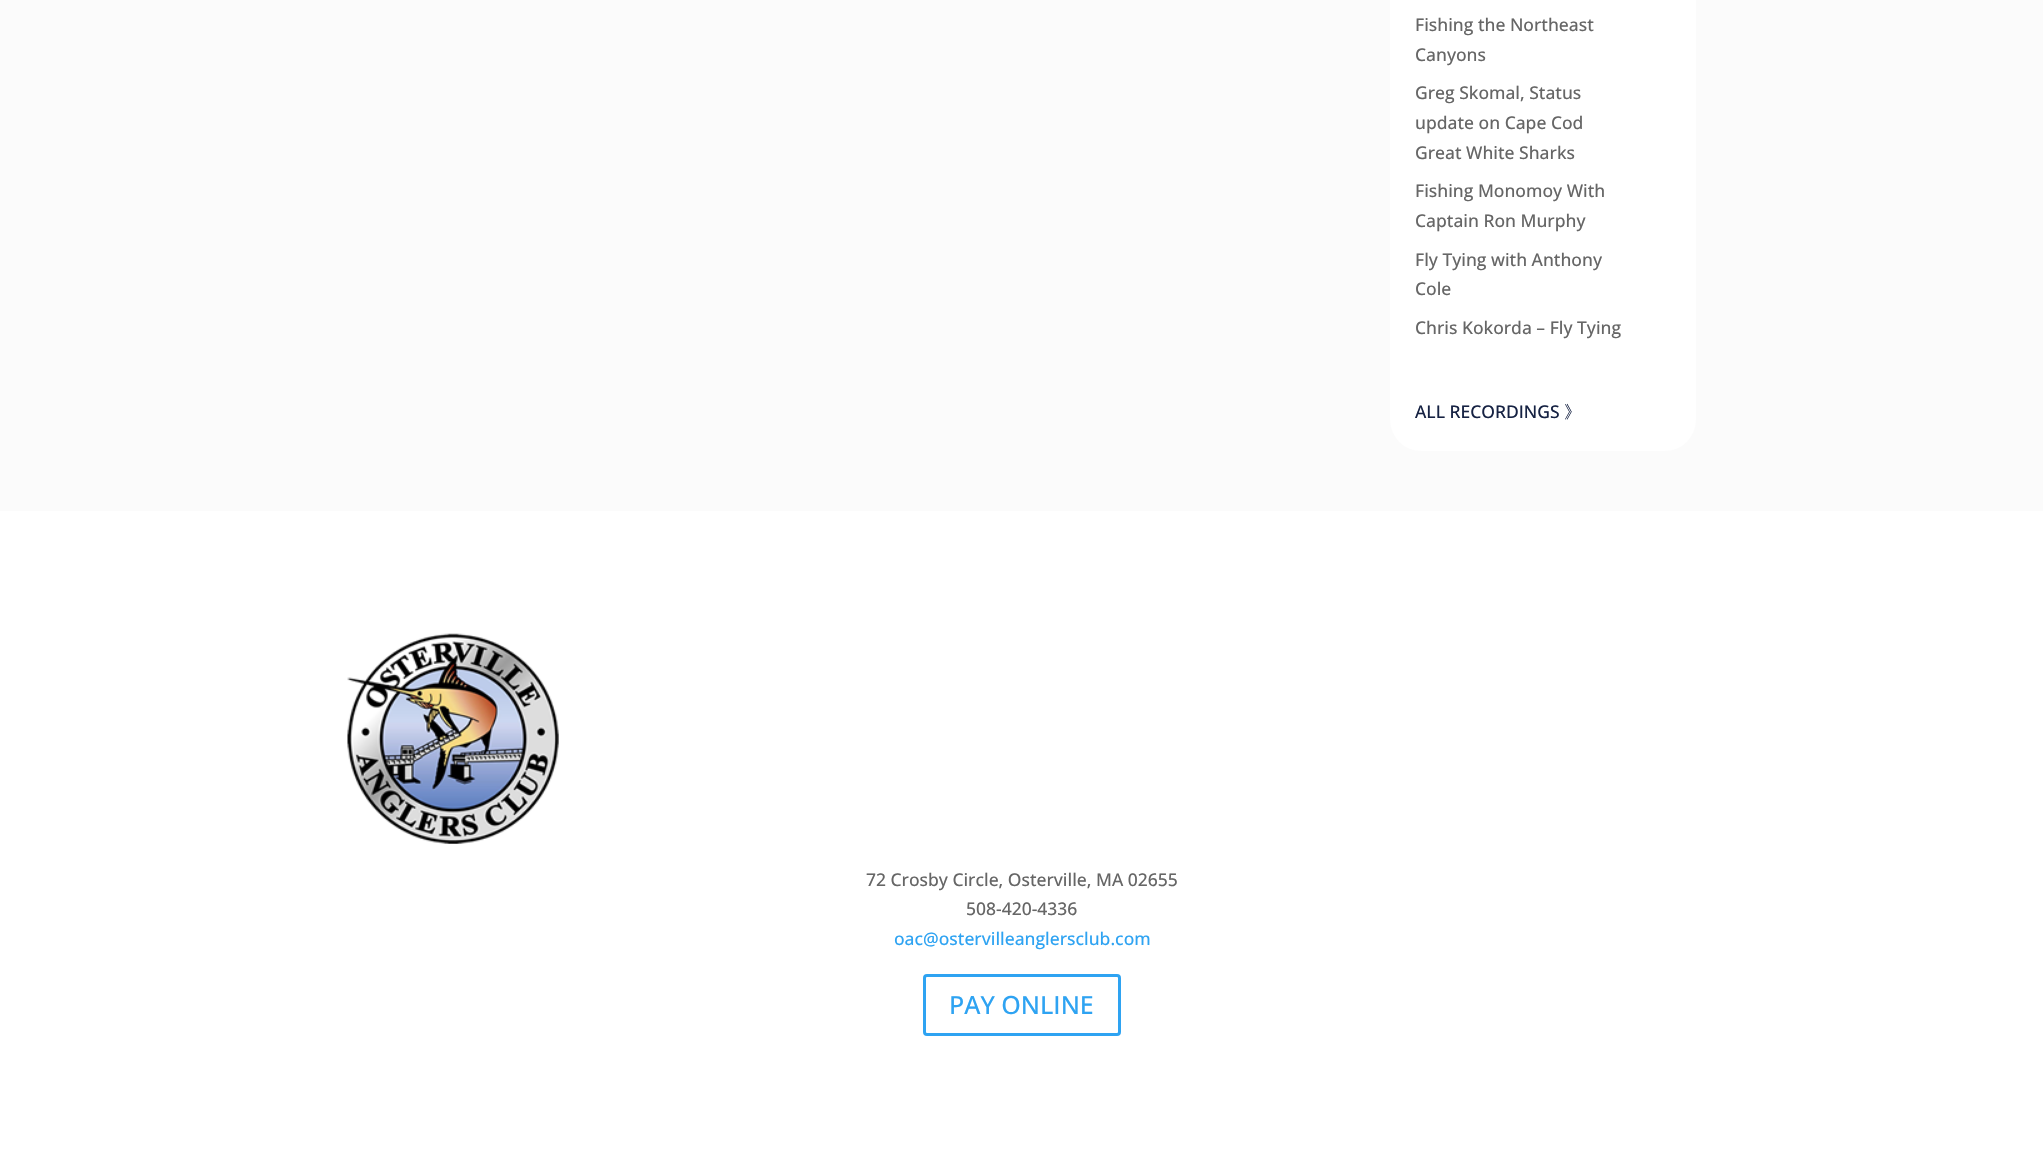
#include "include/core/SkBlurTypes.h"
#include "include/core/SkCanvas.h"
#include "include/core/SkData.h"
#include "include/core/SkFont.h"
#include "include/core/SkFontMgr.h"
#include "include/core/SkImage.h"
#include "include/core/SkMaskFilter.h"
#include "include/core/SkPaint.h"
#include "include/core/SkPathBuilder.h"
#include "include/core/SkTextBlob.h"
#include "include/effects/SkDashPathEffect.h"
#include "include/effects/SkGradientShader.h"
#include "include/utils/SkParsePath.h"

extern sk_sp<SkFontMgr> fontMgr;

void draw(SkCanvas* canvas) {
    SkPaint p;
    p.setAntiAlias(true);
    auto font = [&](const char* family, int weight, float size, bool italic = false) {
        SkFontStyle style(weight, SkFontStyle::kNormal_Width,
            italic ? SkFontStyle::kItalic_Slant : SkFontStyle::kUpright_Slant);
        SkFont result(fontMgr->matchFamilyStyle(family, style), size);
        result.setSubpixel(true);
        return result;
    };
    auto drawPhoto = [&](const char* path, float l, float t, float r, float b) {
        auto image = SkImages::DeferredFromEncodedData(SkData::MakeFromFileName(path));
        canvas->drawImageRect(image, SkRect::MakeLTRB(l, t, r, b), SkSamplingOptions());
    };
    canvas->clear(0xFFFFFFFF);
    p.setColor(0xFFFBFBFB);
    canvas->drawRect(SkRect::MakeLTRB(0, 0, 2043, 511), p);
    p.setColor(0xFFFFFFFF);
    canvas->drawRoundRect(SkRect::MakeLTRB(1390, -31, 1696, 451), 31, 31, p);
    auto font1 = font("Open Sans", 500, 17.5f);
    p.setColor(0xFF666666);
    {
        const struct { const char* s; float x, y; } items[] = {
            {"Fishing the Northeast", 1415, 31},
            {"Canyons", 1415, 61},
            {"Greg Skomal, Status", 1415, 99},
            {"update on Cape Cod", 1415, 129},
            {"Great White Sharks", 1415, 159},
            {"Fishing Monomoy With", 1415, 197},
            {"Captain Ron Murphy", 1415, 227},
            {"Fly Tying with Anthony", 1415, 266},
            {"Cole", 1415, 295},
            {"Chris Kokorda – Fly Tying", 1415, 334},
        };
        for (auto [s, x, y] : items) {
            canvas->drawString(s, x, y, font1, p);
        }
    }
    p.setColor(0xFF162243);
    canvas->drawString("ALL RECORDINGS", 1415, 418, font1, p);
    auto font2 = font("WenQuanYi Zen Hei", 500, 17.5f);
    canvas->drawString("》", 1564, 418, font2, p);
    drawPhoto("media/1.png", 347, 633, 559, 844);
    p.setColor(0xFF666666);
    canvas->drawString("72 Crosby Circle, Osterville, MA 02655", 866, 886, font1, p);
    canvas->drawString("508-420-4336", 966, 915, font1, p);
    p.setColor(0xFF2EA3F2);
    canvas->drawString("oac@ostervilleanglersclub.com", 894, 945, font1, p);
    p.setStyle(SkPaint::kStroke_Style);
    p.setStrokeWidth(3);
    canvas->drawRoundRect(SkRect::MakeLTRB(924.5f, 975.5f, 1119.5f, 1034.5f), 2.5f, 2.5f, p);
    auto font3 = font("Open Sans", 500, 25);
    p.setStyle(SkPaint::kFill_Style);
    canvas->drawString("PAY ONLINE", 949, 1014, font3, p);
}
